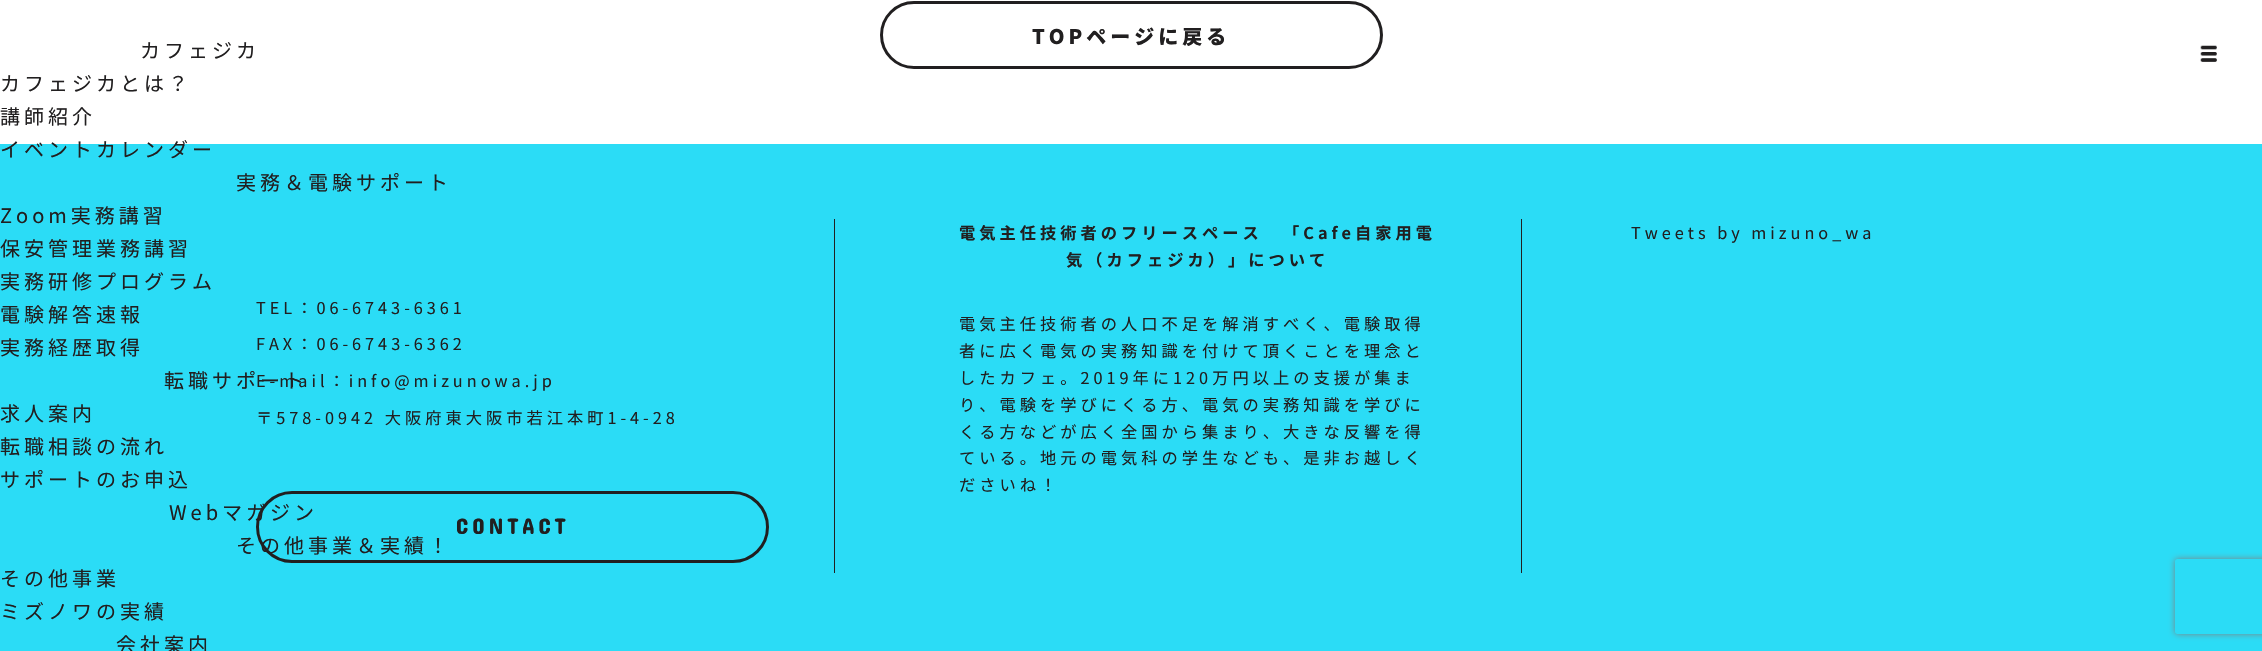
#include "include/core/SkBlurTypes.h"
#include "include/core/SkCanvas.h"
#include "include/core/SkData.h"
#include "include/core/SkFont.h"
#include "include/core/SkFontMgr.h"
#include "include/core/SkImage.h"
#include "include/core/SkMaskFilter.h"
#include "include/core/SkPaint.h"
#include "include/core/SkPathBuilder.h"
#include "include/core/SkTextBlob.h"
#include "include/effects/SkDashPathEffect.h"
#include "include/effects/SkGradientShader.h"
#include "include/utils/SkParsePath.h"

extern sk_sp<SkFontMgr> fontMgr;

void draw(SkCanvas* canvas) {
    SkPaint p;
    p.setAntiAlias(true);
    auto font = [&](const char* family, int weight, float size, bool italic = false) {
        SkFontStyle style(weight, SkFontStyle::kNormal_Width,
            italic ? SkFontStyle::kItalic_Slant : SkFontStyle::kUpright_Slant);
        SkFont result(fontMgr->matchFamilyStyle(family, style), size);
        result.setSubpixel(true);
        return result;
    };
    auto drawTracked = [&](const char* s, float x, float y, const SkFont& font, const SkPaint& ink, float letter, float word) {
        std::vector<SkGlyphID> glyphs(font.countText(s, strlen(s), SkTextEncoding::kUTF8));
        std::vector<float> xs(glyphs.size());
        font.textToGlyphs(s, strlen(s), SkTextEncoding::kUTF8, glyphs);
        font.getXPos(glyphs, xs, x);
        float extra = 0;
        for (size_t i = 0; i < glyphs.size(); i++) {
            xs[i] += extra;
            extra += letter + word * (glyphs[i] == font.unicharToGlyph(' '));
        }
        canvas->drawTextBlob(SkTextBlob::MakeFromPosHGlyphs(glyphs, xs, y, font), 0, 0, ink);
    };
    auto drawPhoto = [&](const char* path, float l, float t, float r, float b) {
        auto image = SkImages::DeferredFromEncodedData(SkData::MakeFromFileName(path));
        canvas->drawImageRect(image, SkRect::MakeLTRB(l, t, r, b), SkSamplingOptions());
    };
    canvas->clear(0xFFFFFFFF);
    p.setStyle(SkPaint::kStroke_Style);
    p.setStrokeWidth(3);
    p.setColor(0xFF211F20);
    canvas->drawRoundRect(SkRect::MakeLTRB(881.5f, 2.5f, 1381.5f, 67.5f), 32.5f, 32.5f, p);
    auto font1 = font("Noto Sans JP", 900, 20);
    p.setStyle(SkPaint::kFill_Style);
    drawTracked("TOPページに戻る", 1032, 44, font1, p, 4, 0);
    auto font2 = font("Noto Sans JP", 400, 20);
    {
        const struct { const char* s; float x, y; } items[] = {
            {"カフェジカ", 140, 58},
            {"カフェジカとは？", 0, 91},
            {"講師紹介", 0, 124},
        };
        for (auto [s, x, y] : items) {
            drawTracked(s, x, y, font2, p, 4, 0);
        }
    }
    p.setColor(0xFF2BDCF6);
    canvas->drawRect(SkRect::MakeLTRB(0, 144, 2262, 651), p);
    p.setColor(0xFF211F20);
    {
        const struct { const char* s; float x, y; } items[] = {
            {"イベントカレンダー", 0, 157},
            {"実務＆電験サポート", 236, 190},
            {"Zoom実務講習", 0, 223},
            {"保安管理業務講習", 0, 256},
            {"実務研修プログラム", 0, 289},
            {"電験解答速報", 0, 322},
            {"実務経歴取得", 0, 355},
        };
        for (auto [s, x, y] : items) {
            drawTracked(s, x, y, font2, p, 4, 0);
        }
    }
    auto font3 = font("Noto Sans JP", 400, 16.25f);
    drawTracked("E-mail：info@mizunowa.jp", 256, 387, font3, p, 4, 0);
    {
        const struct { const char* s; float x, y; } items[] = {
            {"転職サポート", 164, 388},
            {"求人案内", 0, 421},
            {"転職相談の流れ", 0, 454},
            {"サポートのお申込", 0, 487},
        };
        for (auto [s, x, y] : items) {
            drawTracked(s, x, y, font2, p, 4, 0);
        }
    }
    p.setStyle(SkPaint::kStroke_Style);
    canvas->drawRoundRect(SkRect::MakeLTRB(257.5f, 492.5f, 767.5f, 561.5f), 34.5f, 34.5f, p);
    p.setStyle(SkPaint::kFill_Style);
    {
        const struct { const char* s; float x, y; } items[] = {
            {"Webマガジン", 169, 520},
            {"その他事業＆実績！", 236, 553},
            {"その他事業", 0, 586},
            {"ミズノワの実績", 0, 619},
            {"会社案内", 116, 652},
        };
        for (auto [s, x, y] : items) {
            drawTracked(s, x, y, font2, p, 4, 0);
        }
    }
    drawPhoto("media/1.png", 2200, 45, 2217, 62);
    canvas->drawRect(SkRect::MakeLTRB(1521, 219, 1522, 573), p);
    auto font4 = font("Noto Sans JP", 700, 16.25f);
    drawTracked("電気主任技術者のフリースペース　「Cafe自家用電", 959, 239, font4, p, 4, 0);
    drawTracked("気（カフェジカ）」について", 1066, 266, font4, p, 4, 0);
    {
        const struct { const char* s; float x, y; } items[] = {
            {"電気主任技術者の人口不足を解消すべく、電験取得", 959, 330},
            {"者に広く電気の実務知識を付けて頂くことを理念と", 959, 357},
            {"したカフェ。2019年に120万円以上の支援が集ま", 959, 384},
            {"り、電験を学びにくる方、電気の実務知識を学びに", 959, 411},
            {"くる方などが広く全国から集まり、大きな反響を得", 959, 438},
            {"ている。地元の電気科の学生なども、是非お越しく", 959, 464},
            {"ださいね！", 959, 491},
            {"Tweets by mizuno_wa", 1631, 239},
        };
        for (auto [s, x, y] : items) {
            drawTracked(s, x, y, font3, p, 4, 0);
        }
    }
    canvas->drawRect(SkRect::MakeLTRB(834, 219, 835, 573), p);
    {
        const struct { const char* s; float x, y; } items[] = {
            {"TEL：06-6743-6361", 256, 314},
            {"FAX：06-6743-6362", 256, 350},
            {"〒578-0942 大阪府東大阪市若江本町1-4-28", 256, 424},
        };
        for (auto [s, x, y] : items) {
            drawTracked(s, x, y, font3, p, 4, 0);
        }
    }
    auto font5 = font("Concert One", 400, 22.5f);
    drawTracked("CONTACT", 456, 534, font5, p, 4, 0);
    canvas->save();
    canvas->clipPath(SkPathBuilder(SkPathFillType::kEvenOdd).moveTo(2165, 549).lineTo(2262, 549).lineTo(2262, 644).lineTo(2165, 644).close().moveTo(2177.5f, 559).lineTo(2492.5f, 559).cubicTo(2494, 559, 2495, 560, 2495, 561.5f).lineTo(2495, 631.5f).cubicTo(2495, 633, 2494, 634, 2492.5f, 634).lineTo(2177.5f, 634).cubicTo(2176, 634, 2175, 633, 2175, 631.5f).lineTo(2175, 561.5f).cubicTo(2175, 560, 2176, 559, 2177.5f, 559).close().detach(), true);
    p.setColor(0xFF808080);
    p.setMaskFilter(SkMaskFilter::MakeBlur(kNormal_SkBlurStyle, 3));
    canvas->drawRoundRect(SkRect::MakeLTRB(2175, 559, 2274, 634), 2.5f, 2.5f, p);
    p.setMaskFilter(nullptr);
    canvas->restore();
}
